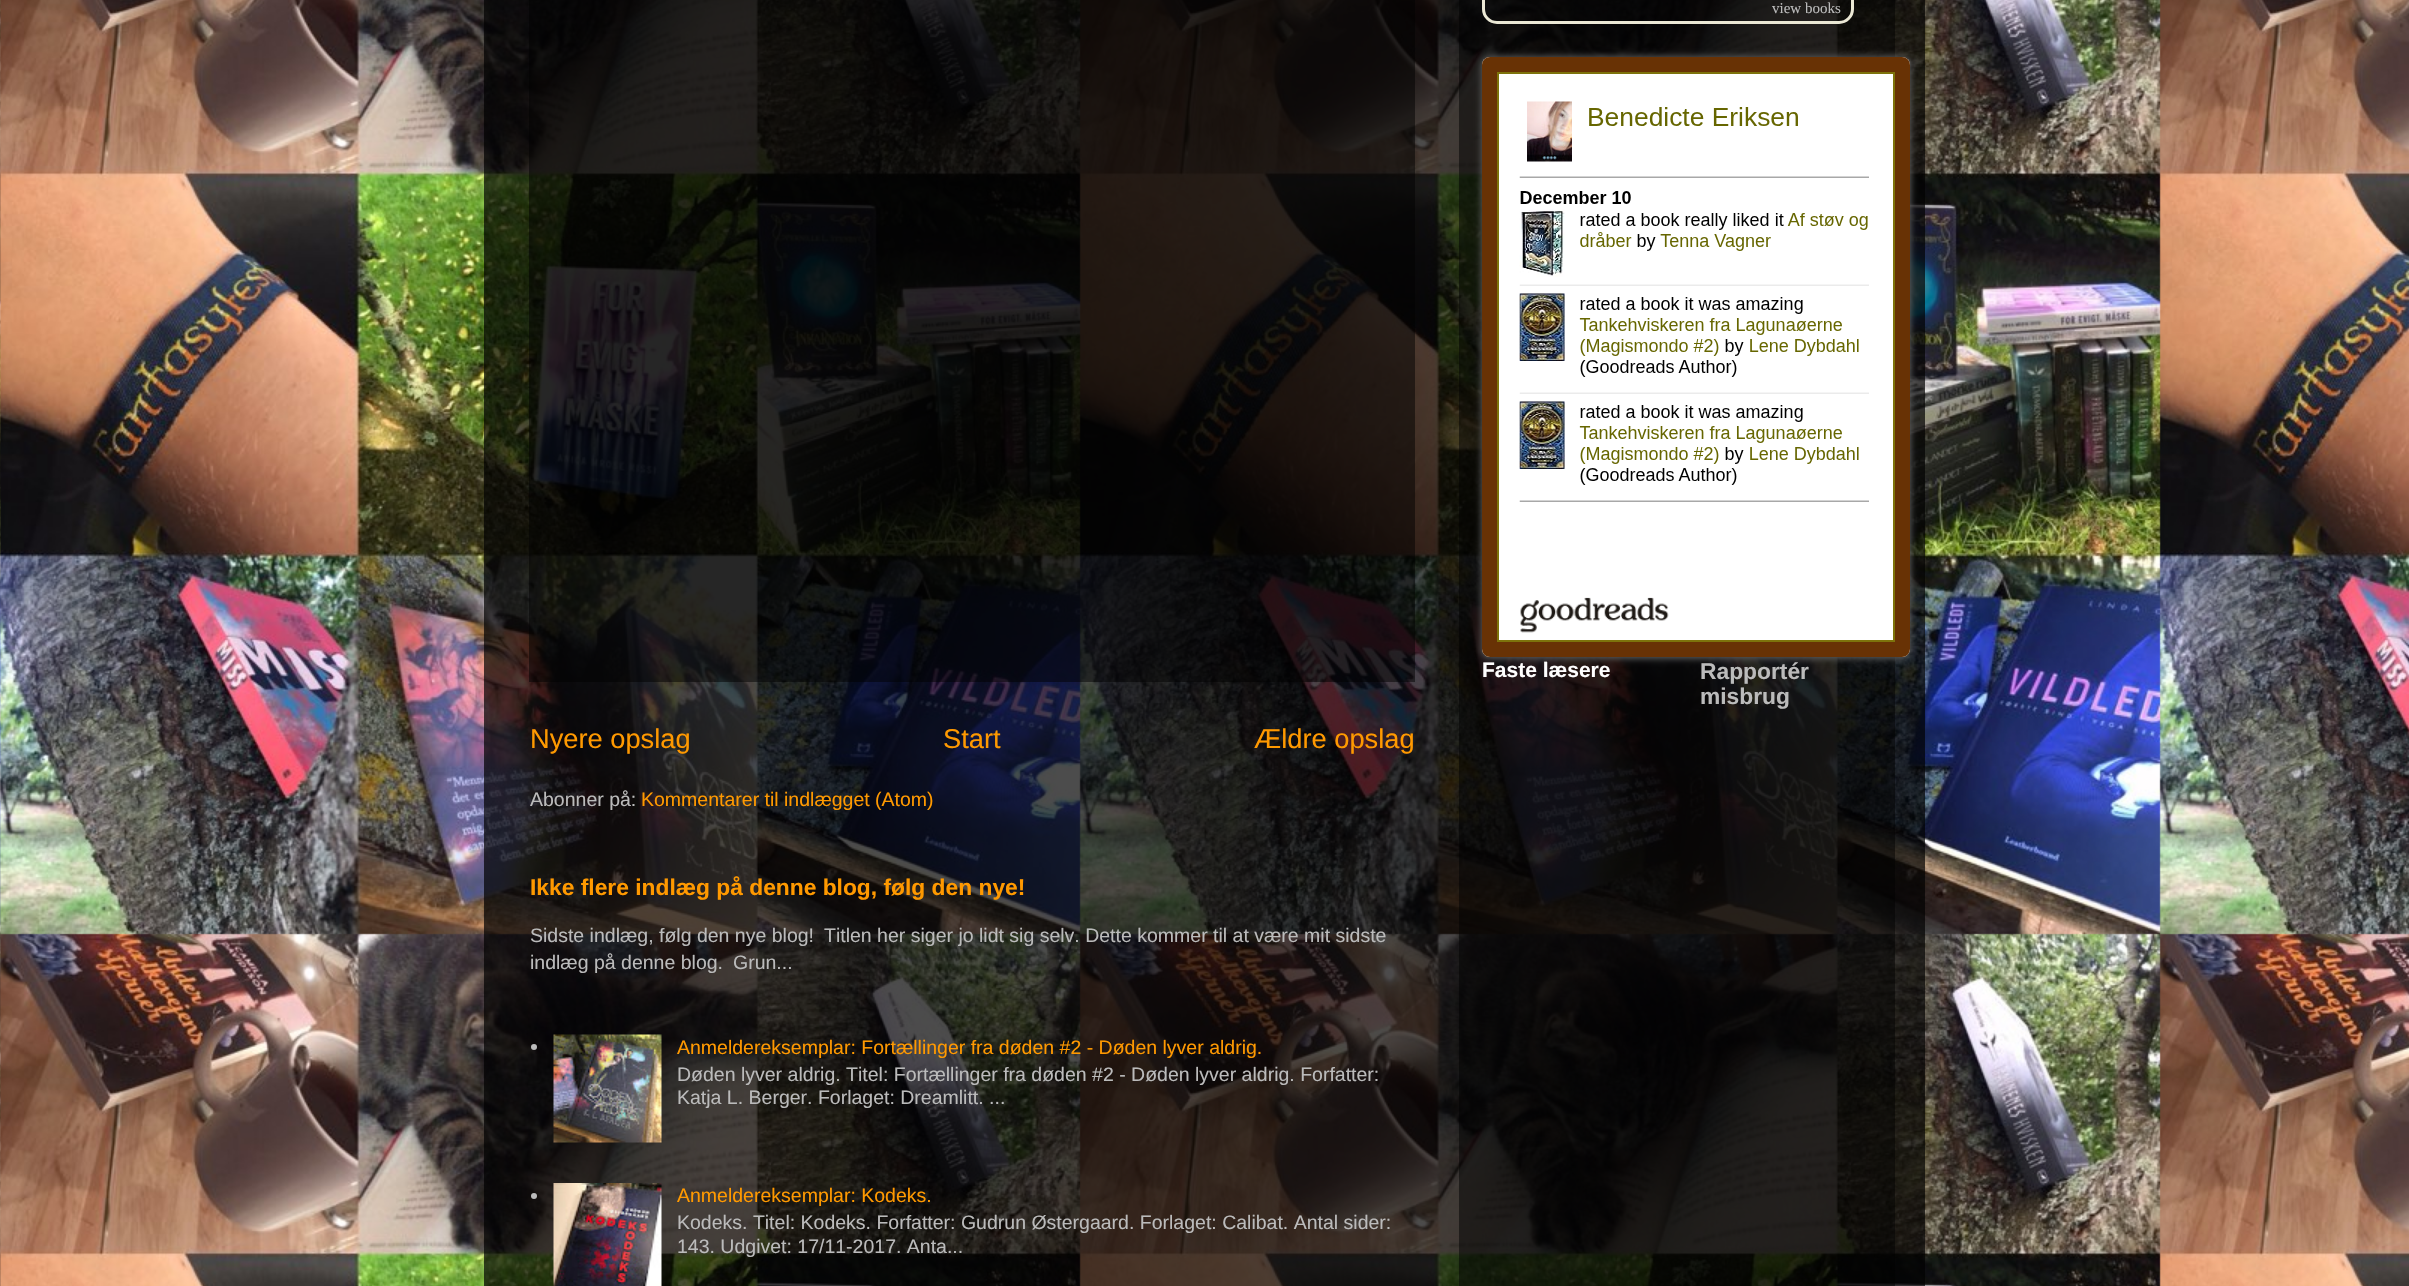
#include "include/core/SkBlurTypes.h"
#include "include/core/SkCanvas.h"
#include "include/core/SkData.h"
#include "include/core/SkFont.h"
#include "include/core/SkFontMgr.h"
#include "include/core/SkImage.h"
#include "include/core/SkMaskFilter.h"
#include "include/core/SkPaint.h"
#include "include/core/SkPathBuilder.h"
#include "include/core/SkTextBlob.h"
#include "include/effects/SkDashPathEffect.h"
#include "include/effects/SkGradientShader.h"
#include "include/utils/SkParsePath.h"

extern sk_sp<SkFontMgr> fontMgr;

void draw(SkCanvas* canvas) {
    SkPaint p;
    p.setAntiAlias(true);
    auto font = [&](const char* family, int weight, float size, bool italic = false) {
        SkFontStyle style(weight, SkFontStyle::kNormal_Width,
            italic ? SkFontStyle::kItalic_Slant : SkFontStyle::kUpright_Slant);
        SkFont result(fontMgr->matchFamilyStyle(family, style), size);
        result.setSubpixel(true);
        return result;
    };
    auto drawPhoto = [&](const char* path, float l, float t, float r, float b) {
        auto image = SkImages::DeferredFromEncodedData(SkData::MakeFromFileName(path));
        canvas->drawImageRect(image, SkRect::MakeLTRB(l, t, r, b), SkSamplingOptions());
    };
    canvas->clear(0xFFFFFFFF);
    drawPhoto("media/1.png", 0, 0, 2409, 1286);
    p.setColor(0xB3000000);
    canvas->drawRect(SkRect::MakeLTRB(484, 0, 1925, 1286), p);
    p.setColor(0x80000000);
    canvas->drawRect(SkRect::MakeLTRB(1459, 0, 1895, 1286), p);
    p.setStyle(SkPaint::kStroke_Style);
    p.setStrokeWidth(3);
    p.setColor(0xFFEBE8D5);
    canvas->drawRoundRect(SkRect::MakeLTRB(1483.5f, -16.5f, 1852.5f, 22.5f), 13.5f, 13.5f, p);
    auto font1 = font("Liberation Serif", 400, 15);
    p.setStyle(SkPaint::kFill_Style);
    p.setColor(0xFFBBBBBB);
    canvas->drawString("view books", 1772, 13, font1, p);
    p.setColor(0xFF595959);
    p.setMaskFilter(SkMaskFilter::MakeBlur(kNormal_SkBlurStyle, 3));
    canvas->drawRoundRect(SkRect::MakeLTRB(1481, 56, 1911, 659), 9, 9, p);
    p.setMaskFilter(nullptr);
    p.setColor(0xFFFFFFFF);
    canvas->drawRoundRect(SkRect::MakeLTRB(1482, 57, 1910, 657), 8, 8, p);
    p.setStyle(SkPaint::kStroke_Style);
    p.setStrokeWidth(2);
    p.setColor(0xFF7D730B);
    canvas->drawRect(SkRect::MakeLTRB(1498, 73, 1894, 641), p);
    p.setStrokeWidth(15);
    p.setColor(0xFF683205);
    canvas->drawRoundRect(SkRect::MakeLTRB(1489.5f, 64.5f, 1902.5f, 649.5f), 0.5f, 0.5f, p);
    drawPhoto("media/2.png", 1519, 101, 1869, 502);
    drawPhoto("media/3.png", 1520, 597, 1669, 633);
    auto font2 = font("Liberation Sans", 700, 21);
    p.setStyle(SkPaint::kFill_Style);
    p.setColor(0xFFFFFFFF);
    canvas->drawString("Faste læsere", 1482, 677, font2, p);
    auto font3 = font("Liberation Sans", 700, 22.8f);
    p.setColor(0xFFBBBBBB);
    canvas->drawString("Rapportér", 1700, 679, font3, p);
    canvas->drawString("misbrug", 1700, 704, font3, p);
    p.setColor(0x80000000);
    canvas->drawRect(SkRect::MakeLTRB(529, 0, 1415, 682), p);
    auto font4 = font("Liberation Sans", 400, 27.25f);
    p.setColor(0xFFFF9900);
    {
        const struct { const char* s; float x, y; } items[] = {
            {"Nyere opslag", 530, 748},
            {"Start", 943, 748},
            {"Ældre opslag", 1254, 748},
        };
        for (auto [s, x, y] : items) {
            canvas->drawString(s, x, y, font4, p);
        }
    }
    auto font5 = font("Liberation Sans", 400, 19.5f);
    p.setColor(0xFFBBBBBB);
    canvas->drawString("Abonner på:", 530, 806, font5, p);
    p.setColor(0xFFFF9900);
    canvas->drawString("Kommentarer til indlægget (Atom)", 641, 806, font5, p);
    canvas->drawString("Ikke flere indlæg på denne blog, følg den nye!", 530, 895, font3, p);
    p.setColor(0xFFBBBBBB);
    {
        const struct { const char* s; float x, y; } items[] = {
            {"Sidste indlæg, følg den nye blog!", 530, 942},
            {"Titlen her siger jo lidt sig selv. Dette kommer til at være mit sidste", 824, 942},
            {"indlæg på denne blog.", 530, 969},
            {"Grun...", 733, 969},
        };
        for (auto [s, x, y] : items) {
            canvas->drawString(s, x, y, font5, p);
        }
    }
    canvas->drawCircle(534, 1047, 3, p);
    drawPhoto("media/4.png", 553, 1034, 662, 1143);
    p.setColor(0xFFFF9900);
    canvas->drawString("Anmeldereksemplar: Fortællinger fra døden #2 - Døden lyver aldrig.", 677, 1054, font5, p);
    p.setColor(0xFFBBBBBB);
    canvas->drawString("Døden lyver aldrig. Titel: Fortællinger fra døden #2 - Døden lyver aldrig. Forfatter:", 677, 1081, font5, p);
    canvas->drawString("Katja L. Berger. Forlaget: Dreamlitt. ...", 677, 1104, font5, p);
    canvas->drawCircle(534, 1196, 3, p);
    drawPhoto("media/5.png", 553, 1183, 662, 1286);
    p.setColor(0xFFFF9900);
    canvas->drawString("Anmeldereksemplar: Kodeks.", 677, 1202, font5, p);
    p.setColor(0xFFBBBBBB);
    canvas->drawString("Kodeks. Titel: Kodeks. Forfatter: Gudrun Østergaard. Forlaget: Calibat. Antal sider:", 677, 1229, font5, p);
    canvas->drawString("143. Udgivet: 17/11-2017. Anta...", 677, 1253, font5, p);
}
